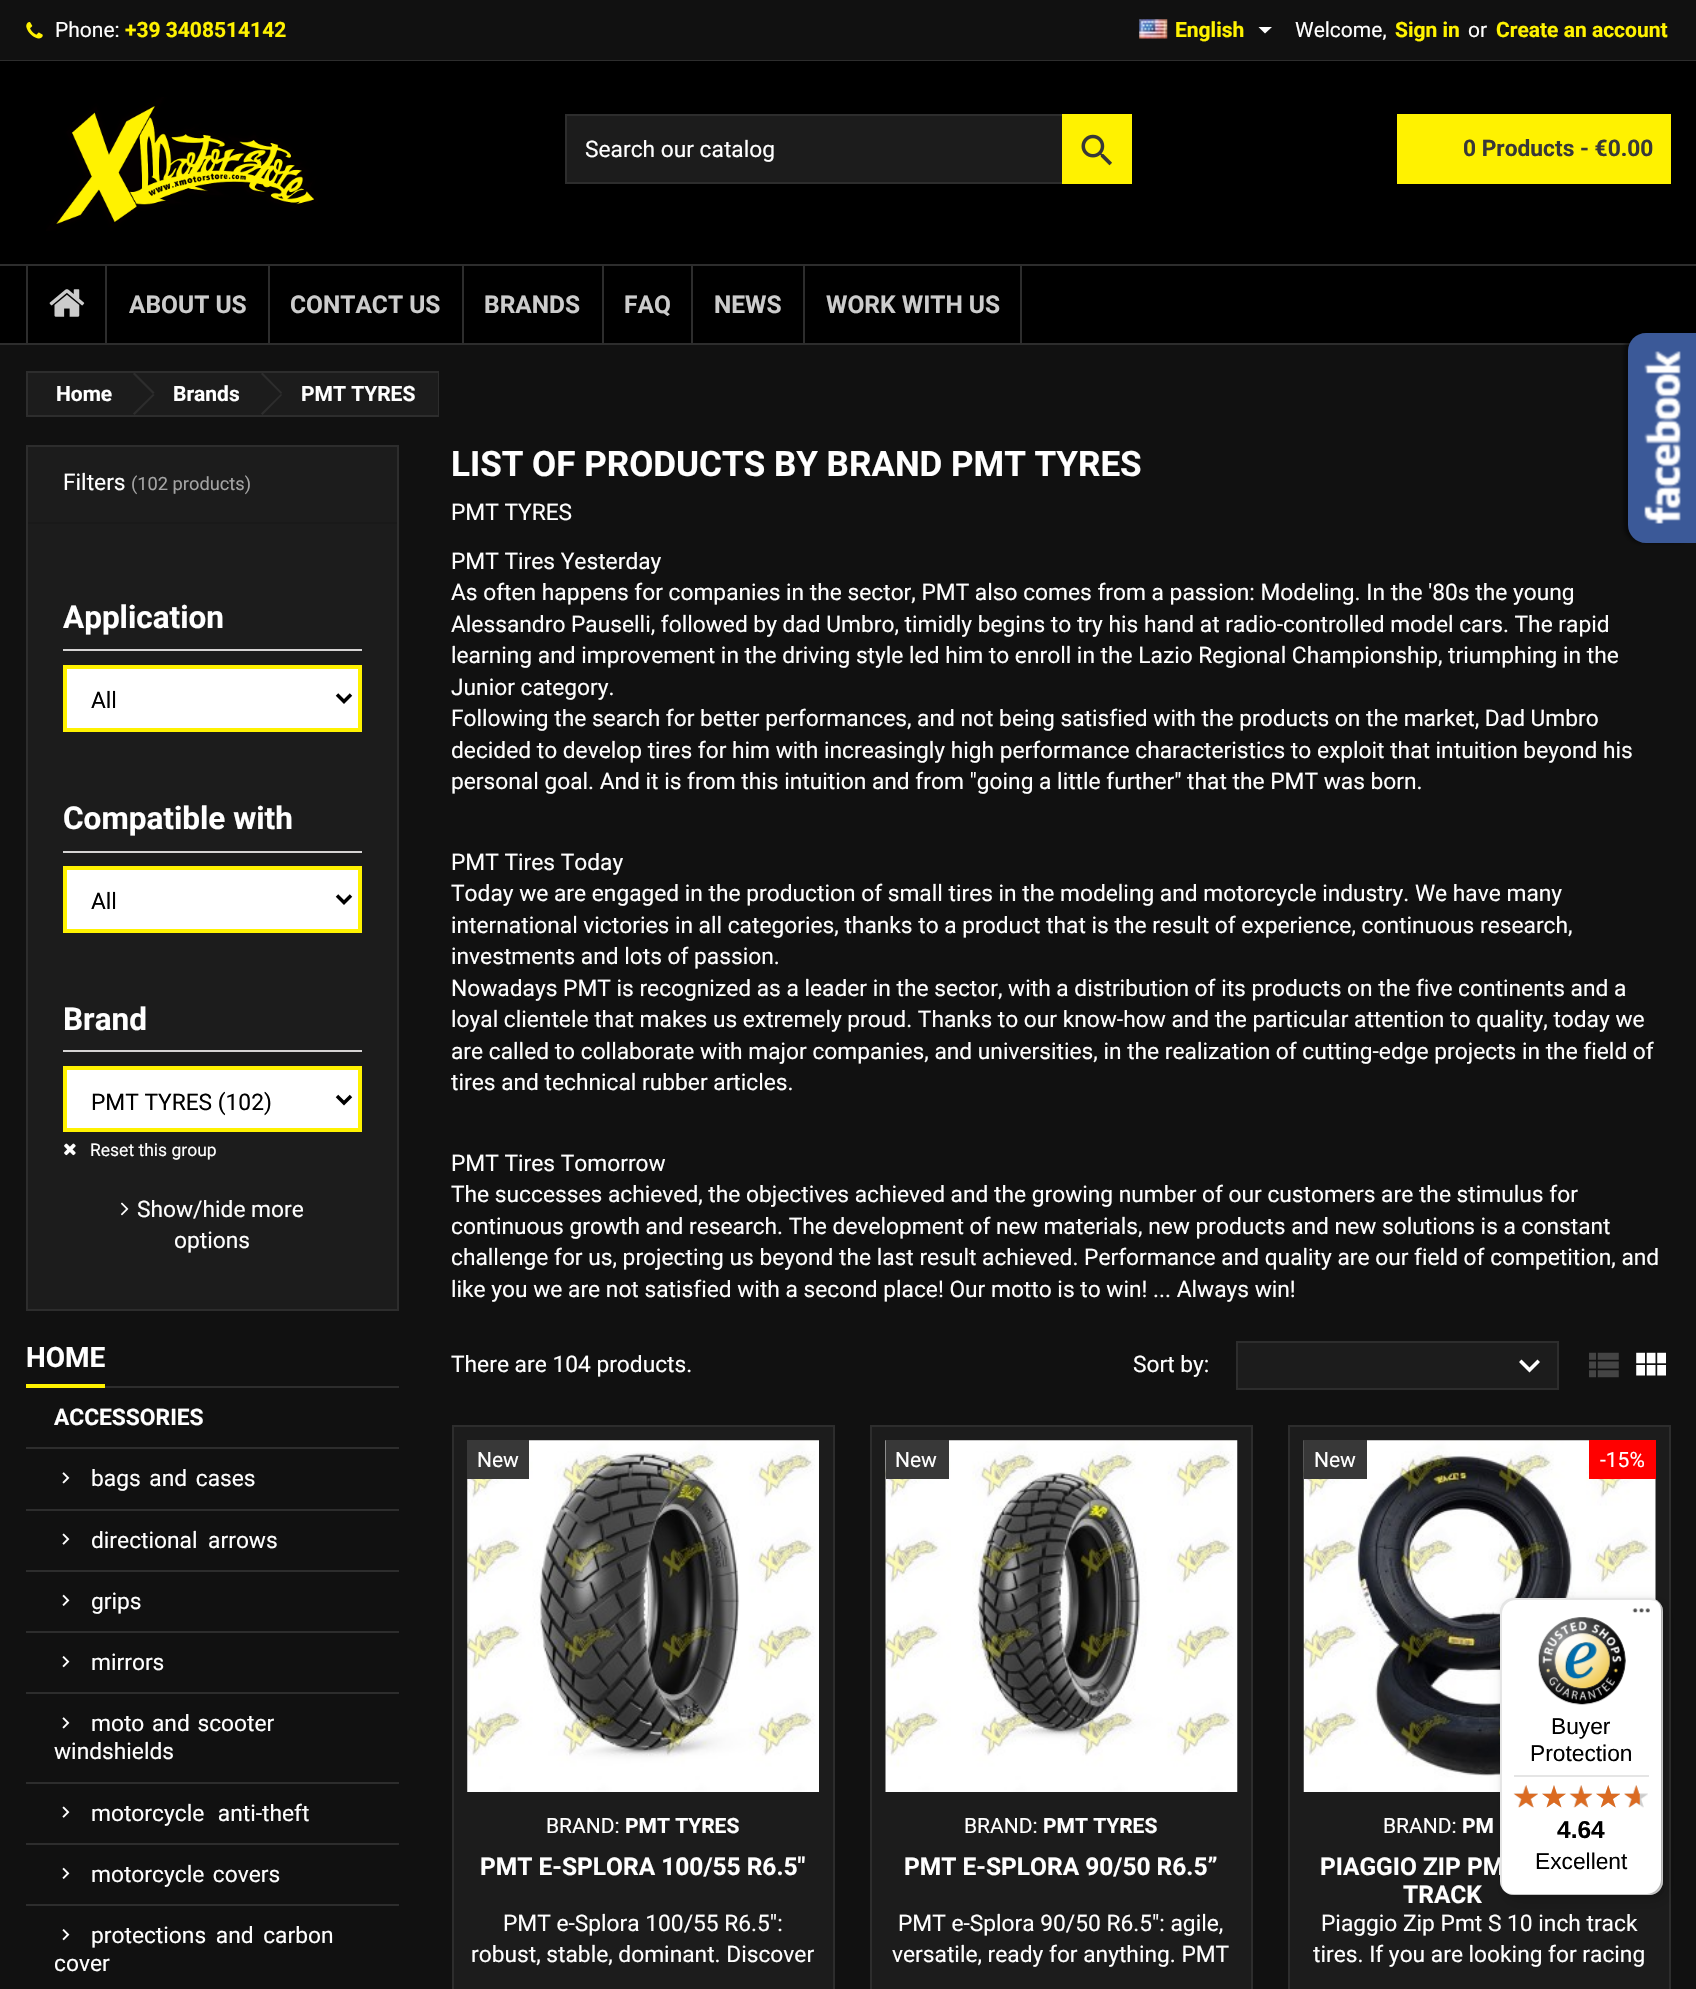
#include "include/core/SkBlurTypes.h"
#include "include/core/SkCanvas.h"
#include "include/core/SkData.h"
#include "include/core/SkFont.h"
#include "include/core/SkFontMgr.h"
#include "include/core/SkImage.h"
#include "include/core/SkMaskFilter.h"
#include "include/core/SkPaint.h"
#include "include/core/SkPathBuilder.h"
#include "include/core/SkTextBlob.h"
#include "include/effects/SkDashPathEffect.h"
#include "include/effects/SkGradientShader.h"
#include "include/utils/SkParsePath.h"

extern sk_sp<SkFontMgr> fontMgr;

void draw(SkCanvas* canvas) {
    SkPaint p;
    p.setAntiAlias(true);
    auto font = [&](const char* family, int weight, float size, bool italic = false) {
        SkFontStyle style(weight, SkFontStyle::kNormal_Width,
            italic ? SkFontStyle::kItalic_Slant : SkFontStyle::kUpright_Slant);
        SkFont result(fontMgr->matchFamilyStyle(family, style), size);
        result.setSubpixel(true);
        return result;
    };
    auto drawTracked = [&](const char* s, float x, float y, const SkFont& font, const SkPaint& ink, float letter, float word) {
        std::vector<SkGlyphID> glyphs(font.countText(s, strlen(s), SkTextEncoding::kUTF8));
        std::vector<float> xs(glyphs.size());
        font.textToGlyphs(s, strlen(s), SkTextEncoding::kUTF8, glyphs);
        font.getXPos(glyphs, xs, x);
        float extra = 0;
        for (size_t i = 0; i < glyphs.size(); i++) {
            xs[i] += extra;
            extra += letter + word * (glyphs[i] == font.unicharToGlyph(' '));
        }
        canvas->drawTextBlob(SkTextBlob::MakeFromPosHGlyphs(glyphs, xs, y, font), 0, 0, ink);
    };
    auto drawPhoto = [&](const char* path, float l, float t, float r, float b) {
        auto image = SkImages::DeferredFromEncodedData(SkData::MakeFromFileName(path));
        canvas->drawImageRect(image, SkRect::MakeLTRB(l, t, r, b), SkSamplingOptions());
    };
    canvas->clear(0xFF111111);
    p.setColor(0xFF2D2D2D);
    canvas->drawRect(SkRect::MakeLTRB(0, 60, 1696, 61), p);
    drawPhoto("media/1.png", 26, 22, 43, 39);
    auto font1 = font("Roboto", 400, 21);
    p.setColor(0xFFFFFFFF);
    canvas->drawString("Phone:", 55, 37, font1, p);
    auto font2 = font("Roboto", 700, 21);
    p.setColor(0xFFFFF200);
    canvas->drawString("+39 3408514142", 125, 37, font2, p);
    drawPhoto("media/2.png", 1139, 19, 1168, 39);
    canvas->drawString("English", 1175, 37, font2, p);
    p.setColor(0xFFFFFFFF);
    canvas->drawPath(SkPathBuilder().moveTo(1258.5f, 27).lineTo(1272, 27).lineTo(1265, 33.5f).close().detach(), p);
    canvas->drawString("Welcome,", 1295, 37, font1, p);
    p.setColor(0xFFFFF200);
    canvas->drawString("Sign in", 1395, 37, font2, p);
    p.setColor(0xFFFFFFFF);
    canvas->drawString("or", 1468, 37, font1, p);
    p.setColor(0xFFFFF200);
    canvas->drawString("Create an account", 1496, 37, font2, p);
    p.setColor(0xFF000000);
    canvas->drawRect(SkRect::MakeLTRB(0, 61, 1696, 264), p);
    drawPhoto("media/3.png", 46, 97, 318, 231);
    p.setColor(0xFF1C1C1C);
    canvas->drawRect(SkRect::MakeLTRB(567, 116, 1062, 182), p);
    p.setStyle(SkPaint::kStroke_Style);
    p.setStrokeWidth(2);
    p.setColor(0xFF2D2D2D);
    canvas->drawRect(SkRect::MakeLTRB(566, 115, 1131, 183), p);
    auto font3 = font("Roboto", 400, 22.75f);
    p.setStyle(SkPaint::kFill_Style);
    p.setColor(0xFFFFFFFF);
    canvas->drawString("Search our catalog", 585, 157, font3, p);
    p.setColor(0xFFFFF200);
    canvas->drawRect(SkRect::MakeLTRB(1062, 114, 1132, 184), p);
    drawPhoto("media/4.png", 1081, 134, 1112, 166);
    canvas->drawRect(SkRect::MakeLTRB(1397, 114, 1671, 184), p);
    auto font4 = font("Roboto", 700, 22.75f);
    p.setColor(0xFF383838);
    canvas->drawString("0 Products - €0.00", 1463, 156, font4, p);
    {
        const struct { float l, t, r, b; SkColor color; } items[] = {
            {0, 266, 1696, 343, 0xFF000000},
            {0, 264, 1696, 266, 0xFF2D2D2D},
            {0, 343, 1630, 345, 0xFF2D2D2D},
            {26, 266, 28, 343, 0xFF2D2D2D},
        };
        for (auto [l, t, r, b, color] : items) {
            p.setColor(color);
            canvas->drawRect(SkRect::MakeLTRB(l, t, r, b), p);
        }
    }
    drawPhoto("media/5.png", 49, 289, 85, 317);
    canvas->drawRect(SkRect::MakeLTRB(105, 266, 107, 343), p);
    auto font5 = font("Roboto", 700, 24.5f);
    p.setColor(0xFFCCCCCC);
    canvas->drawString("ABOUT US", 129, 313, font5, p);
    p.setColor(0xFF2D2D2D);
    canvas->drawRect(SkRect::MakeLTRB(268, 266, 270, 343), p);
    p.setColor(0xFFCCCCCC);
    canvas->drawString("CONTACT US", 290, 313, font5, p);
    p.setColor(0xFF2D2D2D);
    canvas->drawRect(SkRect::MakeLTRB(462, 266, 464, 343), p);
    p.setColor(0xFFCCCCCC);
    canvas->drawString("BRANDS", 484, 313, font5, p);
    p.setColor(0xFF2D2D2D);
    canvas->drawRect(SkRect::MakeLTRB(602, 266, 604, 343), p);
    p.setColor(0xFFCCCCCC);
    canvas->drawString("FAQ", 624, 313, font5, p);
    p.setColor(0xFF2D2D2D);
    canvas->drawRect(SkRect::MakeLTRB(691, 266, 693, 343), p);
    p.setColor(0xFFCCCCCC);
    canvas->drawString("NEWS", 714, 313, font5, p);
    p.setColor(0xFF2D2D2D);
    canvas->drawRect(SkRect::MakeLTRB(1020, 266, 1022, 343), p);
    canvas->drawRect(SkRect::MakeLTRB(803, 266, 805, 343), p);
    p.setColor(0xFFCCCCCC);
    canvas->drawString("WORK WITH US", 826, 313, font5, p);
    p.setColor(0x80000000);
    p.setMaskFilter(SkMaskFilter::MakeBlur(kNormal_SkBlurStyle, 2));
    canvas->drawRoundRect(SkRect::MakeLTRB(1624, 333, 1694, 543), 18, 18, p);
    p.setMaskFilter(nullptr);
    p.setColor(0xFF3B5998);
    canvas->drawPath(SkPathBuilder().moveTo(1646, 333).lineTo(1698, 333).lineTo(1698, 543).lineTo(1646, 543).cubicTo(1636, 543, 1628, 535, 1628, 525).lineTo(1628, 351).cubicTo(1628, 341, 1636, 333, 1646, 333).close().detach(), p);
    drawPhoto("media/6.png", 1644, 351, 1681, 524);
    p.setColor(0xFF1C1C1C);
    canvas->drawRect(SkRect::MakeLTRB(28, 373, 263, 415), p);
    p.setStyle(SkPaint::kStroke_Style);
    p.setColor(0xFF2D2D2D);
    canvas->drawRect(SkRect::MakeLTRB(27, 372, 438, 416), p);
    p.setStyle(SkPaint::kFill_Style);
    p.setColor(0xFFFFFFFF);
    canvas->drawString("Home", 56, 401, font2, p);
    p.setColor(0xFF2D2D2D);
    canvas->drawPath(SkPathBuilder().moveTo(134.5f, 372.5f).lineTo(154.5f, 392.5f).lineTo(153, 394).lineTo(133, 374).close().moveTo(153, 394).lineTo(154.5f, 395).lineTo(134.5f, 415).lineTo(133, 413.5f).close().detach(), p);
    p.setColor(0xFFFFFFFF);
    canvas->drawString("Brands", 173, 401, font2, p);
    p.setColor(0xFF1C1C1C);
    canvas->drawRect(SkRect::MakeLTRB(263, 373, 438, 415), p);
    p.setColor(0xFF2D2D2D);
    canvas->drawPath(SkPathBuilder().moveTo(262.5f, 372.5f).lineTo(282, 392.5f).lineTo(281, 394).lineTo(261, 374).close().moveTo(281, 394).lineTo(282, 395).lineTo(262.5f, 415).lineTo(261, 413.5f).close().detach(), p);
    p.setColor(0xFFFFFFFF);
    canvas->drawString("PMT TYRES", 301, 401, font2, p);
    p.setColor(0xFF1C1C1C);
    canvas->drawRect(SkRect::MakeLTRB(27, 446, 398, 1310), p);
    p.setStyle(SkPaint::kStroke_Style);
    p.setColor(0xFF2D2D2D);
    canvas->drawRect(SkRect::MakeLTRB(27, 446, 398, 1310), p);
    p.setStyle(SkPaint::kFill_Style);
    p.setColor(0xFF191919);
    canvas->drawRect(SkRect::MakeLTRB(28, 522, 397, 524), p);
    p.setColor(0xFFFFFFFF);
    canvas->drawString("Filters", 63, 490, font3, p);
    auto font6 = font("Roboto", 400, 18.25f);
    p.setColor(0xFFA4A4A4);
    canvas->drawString("(102 products)", 131, 490, font6, p);
    p.setColor(0xFFD6D4D4);
    canvas->drawRect(SkRect::MakeLTRB(63, 649, 362, 651), p);
    auto font7 = font("Roboto", 700, 31.5f);
    p.setColor(0xFFFFFFFF);
    canvas->drawString("Application", 63, 628, font7, p);
    canvas->drawRect(SkRect::MakeLTRB(65, 667, 360, 730), p);
    p.setStyle(SkPaint::kStroke_Style);
    p.setStrokeWidth(4);
    p.setColor(0xFFFFF200);
    canvas->drawRect(SkRect::MakeLTRB(65, 667, 360, 730), p);
    p.setStrokeWidth(3.5f);
    p.setColor(0xFF000000);
    canvas->drawPath(SkPathBuilder().moveTo(337, 694.5f).lineTo(344, 701.5f).lineTo(351, 694.5f).detach(), p);
    p.setStyle(SkPaint::kFill_Style);
    canvas->drawString("All", 91, 708, font3, p);
    p.setColor(0xFFD6D4D4);
    canvas->drawRect(SkRect::MakeLTRB(63, 851, 362, 853), p);
    p.setColor(0xFFFFFFFF);
    canvas->drawString("Compatible with", 63, 829, font7, p);
    canvas->drawRect(SkRect::MakeLTRB(65, 868, 360, 931), p);
    p.setStyle(SkPaint::kStroke_Style);
    p.setStrokeWidth(4);
    p.setColor(0xFFFFF200);
    canvas->drawRect(SkRect::MakeLTRB(65, 868, 360, 931), p);
    p.setStrokeWidth(3.5f);
    p.setColor(0xFF000000);
    canvas->drawPath(SkPathBuilder().moveTo(337, 895.5f).lineTo(344, 902.5f).lineTo(351, 895.5f).detach(), p);
    p.setStyle(SkPaint::kFill_Style);
    canvas->drawString("All", 91, 909, font3, p);
    p.setColor(0xFFD6D4D4);
    canvas->drawRect(SkRect::MakeLTRB(63, 1050, 362, 1052), p);
    p.setColor(0xFFFFFFFF);
    canvas->drawString("Brand", 63, 1030, font7, p);
    canvas->drawRect(SkRect::MakeLTRB(65, 1068, 360, 1130), p);
    p.setStyle(SkPaint::kStroke_Style);
    p.setStrokeWidth(4);
    p.setColor(0xFFFFF200);
    canvas->drawRect(SkRect::MakeLTRB(65, 1068, 360, 1130), p);
    p.setStrokeWidth(3.5f);
    p.setColor(0xFF000000);
    canvas->drawPath(SkPathBuilder().moveTo(337, 1096).lineTo(344, 1103).lineTo(351, 1096).detach(), p);
    p.setStyle(SkPaint::kFill_Style);
    canvas->drawString("PMT TYRES (102)", 91, 1110, font3, p);
    drawPhoto("media/7.png", 64, 1143, 76, 1156);
    auto font8 = font("Roboto", 400, 17.5f);
    p.setColor(0xFFFFFFFF);
    canvas->drawString("Reset this group", 90, 1156, font8, p);
    drawPhoto("media/8.png", 121, 1202, 129, 1216);
    canvas->drawString("Show/hide more", 137, 1217, font3, p);
    canvas->drawString("options", 174, 1248, font3, p);
    p.setColor(0xFF2D2D2D);
    canvas->drawRect(SkRect::MakeLTRB(105, 1386, 399, 1388), p);
    p.setColor(0xFFFFF200);
    canvas->drawRect(SkRect::MakeLTRB(26, 1384, 105, 1388), p);
    auto font9 = font("Roboto", 700, 28);
    p.setColor(0xFFFFFFFF);
    canvas->drawString("HOME", 26, 1367, font9, p);
    p.setColor(0xFF2D2D2D);
    canvas->drawRect(SkRect::MakeLTRB(26, 1447, 399, 1449), p);
    p.setColor(0xFFFFFFFF);
    canvas->drawString("ACCESSORIES", 54, 1425, font4, p);
    p.setColor(0xFF2D2D2D);
    canvas->drawRect(SkRect::MakeLTRB(26, 1509, 399, 1511), p);
    drawPhoto("media/9.png", 62, 1472, 70, 1484);
    p.setColor(0xFFFFFFFF);
    drawTracked("bags and cases", 91, 1486, font3, p, 0, 3);
    p.setColor(0xFF2D2D2D);
    canvas->drawRect(SkRect::MakeLTRB(26, 1570, 399, 1572), p);
    drawPhoto("media/10.png", 62, 1533, 70, 1545);
    p.setColor(0xFFFFFFFF);
    drawTracked("directional arrows", 91, 1548, font3, p, 0, 5);
    p.setColor(0xFF2D2D2D);
    canvas->drawRect(SkRect::MakeLTRB(26, 1631, 399, 1633), p);
    drawPhoto("media/11.png", 62, 1594, 70, 1606);
    p.setColor(0xFFFFFFFF);
    canvas->drawString("grips", 91, 1609, font3, p);
    p.setColor(0xFF2D2D2D);
    canvas->drawRect(SkRect::MakeLTRB(26, 1692, 399, 1694), p);
    drawPhoto("media/12.png", 62, 1656, 70, 1668);
    p.setColor(0xFFFFFFFF);
    canvas->drawString("mirrors", 91, 1670, font3, p);
    p.setColor(0xFF2D2D2D);
    canvas->drawRect(SkRect::MakeLTRB(26, 1782, 399, 1784), p);
    drawPhoto("media/9.png", 62, 1717, 70, 1729);
    p.setColor(0xFFFFFFFF);
    drawTracked("moto and scooter", 91, 1731, font3, p, 0, 2);
    canvas->drawString("windshields", 54, 1759, font3, p);
    p.setColor(0xFF2D2D2D);
    canvas->drawRect(SkRect::MakeLTRB(26, 1843, 399, 1845), p);
    drawPhoto("media/10.png", 62, 1806, 70, 1818);
    p.setColor(0xFFFFFFFF);
    drawTracked("motorcycle anti-theft", 91, 1821, font3, p, 0, 8);
    p.setColor(0xFF2D2D2D);
    canvas->drawRect(SkRect::MakeLTRB(26, 1904, 399, 1906), p);
    drawPhoto("media/11.png", 62, 1867, 70, 1879);
    p.setColor(0xFFFFFFFF);
    drawTracked("motorcycle covers", 91, 1882, font3, p, 0, 3);
    drawPhoto("media/12.png", 62, 1929, 70, 1941);
    drawTracked("protections and carbon", 91, 1943, font3, p, 0, 4);
    canvas->drawString("cover", 54, 1971, font3, p);
    auto font10 = font("Roboto", 700, 35);
    canvas->drawString("LIST OF PRODUCTS BY BRAND PMT TYRES", 451, 476, font10, p);
    {
        const struct { const char* s; float x, y; } items[] = {
            {"PMT TYRES", 451, 520},
            {"PMT Tires Yesterday", 451, 569},
            {"As often happens for companies in the sector, PMT also comes from a passion: Modeling. In the '80s the young", 451, 600},
            {"Alessandro Pauselli, followed by dad Umbro, timidly begins to try his hand at radio-controlled model cars. The rapid", 451, 632},
            {"learning and improvement in the driving style led him to enroll in the Lazio Regional Championship, triumphing in the", 451, 663},
            {"Junior category.", 451, 695},
            {"Following the search for better performances, and not being satisfied with the products on the market, Dad Umbro", 451, 726},
            {"decided to develop tires for him with increasingly high performance characteristics to exploit that intuition beyond his", 451, 758},
            {"personal goal. And it is from this intuition and from \"going a little further\" that the PMT was born.", 451, 789},
            {"PMT Tires Today", 451, 870},
            {"Today we are engaged in the production of small tires in the modeling and motorcycle industry. We have many", 451, 901},
            {"international victories in all categories, thanks to a product that is the result of experience, continuous research,", 451, 933},
            {"investments and lots of passion.", 451, 964},
            {"Nowadays PMT is recognized as a leader in the sector, with a distribution of its products on the five continents and a", 451, 996},
            {"loyal clientele that makes us extremely proud. Thanks to our know-how and the particular attention to quality, today we", 451, 1027},
            {"are called to collaborate with major companies, and universities, in the realization of cutting-edge projects in the field of", 451, 1059},
            {"tires and technical rubber articles.", 451, 1090},
            {"PMT Tires Tomorrow", 451, 1171},
            {"The successes achieved, the objectives achieved and the growing number of our customers are the stimulus for", 451, 1202},
            {"continuous growth and research. The development of new materials, new products and new solutions is a constant", 451, 1234},
            {"challenge for us, projecting us beyond the last result achieved. Performance and quality are our field of competition, and", 451, 1265},
            {"like you we are not satisfied with a second place! Our motto is to win! ... Always win!", 451, 1297},
            {"There are 104 products.", 451, 1372},
            {"Sort by:", 1133, 1372},
        };
        for (auto [s, x, y] : items) {
            canvas->drawString(s, x, y, font3, p);
        }
    }
    p.setColor(0xFF1C1C1C);
    canvas->drawRect(SkRect::MakeLTRB(1237, 1342, 1558, 1389), p);
    p.setStyle(SkPaint::kStroke_Style);
    p.setStrokeWidth(2);
    p.setColor(0xFF2D2D2D);
    canvas->drawRect(SkRect::MakeLTRB(1237, 1342, 1558, 1389), p);
    p.setStyle(SkPaint::kFill_Style);
    p.setColor(0xFFFFFFFF);
    canvas->drawPath(SkPathBuilder().moveTo(1521.5f, 1359.5f).lineTo(1529.5f, 1367.5f).lineTo(1537.5f, 1359.5f).lineTo(1540, 1362).lineTo(1529.5f, 1372.5f).lineTo(1519, 1362).close().detach(), p);
    drawPhoto("media/13.png", 1589, 1352, 1619, 1378);
    drawPhoto("media/14.png", 1636, 1352, 1666, 1376);
    p.setColor(0xFF1C1C1C);
    canvas->drawRect(SkRect::MakeLTRB(453, 1426, 834, 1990), p);
    p.setStyle(SkPaint::kStroke_Style);
    p.setColor(0xFF2D2D2D);
    canvas->drawRect(SkRect::MakeLTRB(453, 1426, 834, 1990), p);
    drawPhoto("media/15.png", 467, 1440, 819, 1792);
    p.setStyle(SkPaint::kFill_Style);
    p.setColor(0xFF383838);
    canvas->drawRect(SkRect::MakeLTRB(467, 1440, 529, 1479), p);
    p.setColor(0xFFFFFFFF);
    canvas->drawString("New", 477, 1467, font1, p);
    canvas->drawString("BRAND:", 546, 1833, font1, p);
    canvas->drawString("PMT TYRES", 625, 1833, font2, p);
    canvas->drawString("PMT E-SPLORA 100/55 R6.5\"", 480, 1875, font5, p);
    canvas->drawString("PMT e-Splora 100/55 R6.5\":", 503, 1931, font3, p);
    canvas->drawString("robust, stable, dominant. Discover", 471, 1962, font3, p);
    p.setColor(0xFF1C1C1C);
    canvas->drawRect(SkRect::MakeLTRB(871, 1426, 1252, 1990), p);
    p.setStyle(SkPaint::kStroke_Style);
    p.setColor(0xFF2D2D2D);
    canvas->drawRect(SkRect::MakeLTRB(871, 1426, 1252, 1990), p);
    drawPhoto("media/16.png", 885, 1440, 1238, 1792);
    p.setStyle(SkPaint::kFill_Style);
    p.setColor(0xFF383838);
    canvas->drawRect(SkRect::MakeLTRB(886, 1440, 949, 1479), p);
    p.setColor(0xFFFFFFFF);
    canvas->drawString("New", 895, 1467, font1, p);
    canvas->drawString("BRAND:", 964, 1833, font1, p);
    canvas->drawString("PMT TYRES", 1043, 1833, font2, p);
    canvas->drawString("PMT E-SPLORA 90/50 R6.5”", 904, 1875, font5, p);
    canvas->drawString("PMT e-Splora 90/50 R6.5\": agile,", 898, 1931, font3, p);
    canvas->drawString("versatile, ready for anything. PMT", 892, 1962, font3, p);
    p.setColor(0xFF1C1C1C);
    canvas->drawRect(SkRect::MakeLTRB(1289, 1426, 1670, 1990), p);
    p.setStyle(SkPaint::kStroke_Style);
    p.setColor(0xFF2D2D2D);
    canvas->drawRect(SkRect::MakeLTRB(1289, 1426, 1670, 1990), p);
    drawPhoto("media/17.png", 1303, 1440, 1656, 1792);
    p.setStyle(SkPaint::kFill_Style);
    p.setColor(0xFF383838);
    canvas->drawRect(SkRect::MakeLTRB(1304, 1440, 1367, 1479), p);
    p.setColor(0xFFFFFFFF);
    canvas->drawString("New", 1314, 1467, font1, p);
    p.setColor(0xFFFF0000);
    canvas->drawRect(SkRect::MakeLTRB(1589, 1440, 1656, 1479), p);
    p.setColor(0xFFFFFFFF);
    canvas->drawString("-15%", 1600, 1467, font1, p);
    canvas->drawString("BRAND:", 1383, 1833, font1, p);
    canvas->drawString("PM", 1462, 1833, font2, p);
    canvas->drawString("PIAGGIO ZIP PM", 1320, 1875, font5, p);
    canvas->drawString("TRACK", 1403, 1903, font5, p);
    canvas->drawString("Piaggio Zip Pmt S 10 inch track", 1321, 1931, font3, p);
    canvas->drawString("tires. If you are looking for racing", 1313, 1962, font3, p);
    p.setColor(0x26000000);
    p.setMaskFilter(SkMaskFilter::MakeBlur(kNormal_SkBlurStyle, 7));
    canvas->drawRoundRect(SkRect::MakeLTRB(1505, 1603, 1668, 1901), 14, 14, p);
    p.setMaskFilter(nullptr);
    p.setMaskFilter(SkMaskFilter::MakeBlur(kNormal_SkBlurStyle, 2));
    canvas->drawRoundRect(SkRect::MakeLTRB(1502, 1600, 1664, 1897), 14, 14, p);
    p.setMaskFilter(nullptr);
    p.setColor(0xFFFFFFFF);
    canvas->drawRoundRect(SkRect::MakeLTRB(1500, 1598, 1663, 1895), 14, 14, p);
    p.setColor(0x1A000000);
    canvas->drawPath(SkPathBuilder().moveTo(1516, 1600).lineTo(1650, 1600).cubicTo(1655, 1600, 1659, 1602, 1662, 1606).cubicTo(1659, 1601, 1655, 1598, 1649, 1598).lineTo(1514, 1598).cubicTo(1506, 1598, 1500, 1604, 1500, 1612).lineTo(1500, 1881).cubicTo(1500, 1885, 1502, 1889, 1505, 1891).cubicTo(1503, 1889, 1502, 1886, 1502, 1883).lineTo(1502, 1614).cubicTo(1502, 1606, 1508, 1600, 1516, 1600).close().detach(), p);
    p.setColor(0x33000000);
    canvas->drawPath(SkPathBuilder().moveTo(1507, 1893).cubicTo(1509, 1894, 1511, 1895, 1514, 1895).lineTo(1649, 1895).cubicTo(1657, 1895, 1663, 1889, 1663, 1881).lineTo(1663, 1612).cubicTo(1663, 1607, 1661, 1603, 1657, 1601).cubicTo(1660, 1603, 1661, 1606, 1661, 1610).lineTo(1661, 1880).cubicTo(1661, 1887, 1654, 1894, 1647, 1894).lineTo(1512, 1894).cubicTo(1510, 1894, 1508, 1894, 1507, 1893).close().detach(), p);
    p.setColor(0x33323232);
    canvas->drawPath(SkPathBuilder().moveTo(1505, 1891).cubicTo(1507, 1894, 1510, 1895, 1514, 1895).lineTo(1649, 1895).cubicTo(1657, 1895, 1663, 1889, 1663, 1881).lineTo(1663, 1612).cubicTo(1663, 1606, 1660, 1602, 1655, 1599).cubicTo(1659, 1602, 1661, 1606, 1661, 1611).lineTo(1661, 1880).cubicTo(1661, 1888, 1655, 1894, 1647, 1894).lineTo(1513, 1894).cubicTo(1510, 1894, 1507, 1893, 1505, 1891).close().detach(), p);
    p.setColor(0x4DFFFFFF);
    canvas->drawPath(SkPathBuilder().moveTo(1505, 1891).cubicTo(1507, 1894, 1510, 1895, 1514, 1895).lineTo(1649, 1895).cubicTo(1657, 1895, 1663, 1889, 1663, 1881).lineTo(1663, 1612).cubicTo(1663, 1607, 1661, 1603, 1657, 1601).cubicTo(1660, 1603, 1662, 1607, 1662, 1611).lineTo(1662, 1880).cubicTo(1662, 1888, 1655, 1894, 1648, 1894).lineTo(1513, 1894).cubicTo(1510, 1894, 1507, 1893, 1505, 1891).close().detach(), p);
    drawPhoto("media/18.png", 1632, 1608, 1650, 1613);
    drawPhoto("media/19.png", 1538, 1617, 1626, 1705);
    auto font11 = font("Liberation Sans", 400, 22.75f);
    p.setColor(0xFF000000);
    canvas->drawString("Buyer", 1551, 1734, font11, p);
    canvas->drawString("Protection", 1530, 1761, font11, p);
    p.setColor(0xFFE5E5E5);
    canvas->drawRect(SkRect::MakeLTRB(1514, 1775, 1649, 1777), p);
    drawPhoto("media/25.png", 1514, 1785, 1538, 1808);
    drawPhoto("media/20.png", 1513, 1785, 1538, 1808);
    drawPhoto("media/26.png", 1542, 1785, 1566, 1808);
    drawPhoto("media/21.png", 1542, 1785, 1566, 1808);
    drawPhoto("media/27.png", 1570, 1785, 1592, 1808);
    drawPhoto("media/22.png", 1569, 1785, 1593, 1808);
    drawPhoto("media/28.png", 1596, 1785, 1620, 1808);
    drawPhoto("media/23.png", 1596, 1785, 1620, 1808);
    drawPhoto("media/29.png", 1624, 1785, 1648, 1808);
    drawPhoto("media/24.png", 1624, 1785, 1640, 1808);
    auto font12 = font("Liberation Sans", 700, 24.5f);
    p.setColor(0xFF000000);
    canvas->drawString("4.64", 1557, 1838, font12, p);
    canvas->drawString("Excellent", 1535, 1869, font11, p);
}
